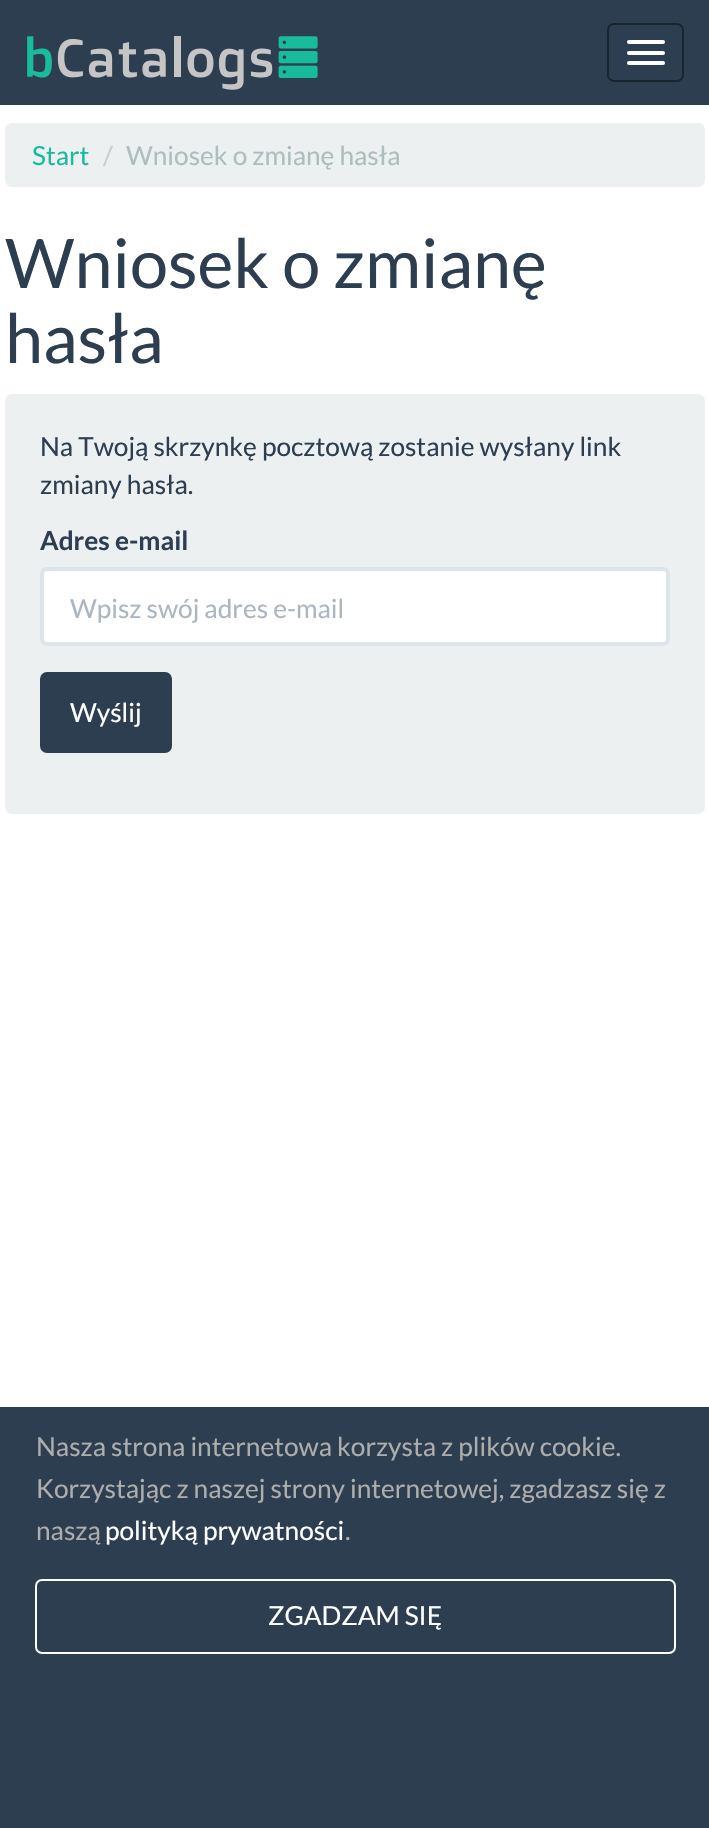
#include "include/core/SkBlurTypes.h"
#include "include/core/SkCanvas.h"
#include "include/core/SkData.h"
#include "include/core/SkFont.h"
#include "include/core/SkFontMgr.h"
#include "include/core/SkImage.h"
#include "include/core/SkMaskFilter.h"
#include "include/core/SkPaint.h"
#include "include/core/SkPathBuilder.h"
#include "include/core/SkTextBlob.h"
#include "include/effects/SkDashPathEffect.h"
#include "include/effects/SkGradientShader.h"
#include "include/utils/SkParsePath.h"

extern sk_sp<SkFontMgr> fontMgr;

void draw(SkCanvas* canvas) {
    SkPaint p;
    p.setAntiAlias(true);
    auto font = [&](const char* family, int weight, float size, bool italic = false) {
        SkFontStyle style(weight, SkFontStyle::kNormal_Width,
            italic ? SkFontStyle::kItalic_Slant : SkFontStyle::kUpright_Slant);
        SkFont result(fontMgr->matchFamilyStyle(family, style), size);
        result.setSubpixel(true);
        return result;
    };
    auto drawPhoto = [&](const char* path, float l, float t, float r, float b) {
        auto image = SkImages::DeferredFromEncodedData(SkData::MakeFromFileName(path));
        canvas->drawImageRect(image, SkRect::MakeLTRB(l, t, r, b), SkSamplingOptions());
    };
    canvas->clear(0xFFFFFFFF);
    p.setColor(0xFF2C3E50);
    canvas->drawRect(SkRect::MakeLTRB(0, 0, 709, 105), p);
    drawPhoto("media/1.png", 27, 36, 318, 90);
    p.setStyle(SkPaint::kStroke_Style);
    p.setStrokeWidth(2);
    p.setColor(0xFF1A242F);
    canvas->drawRoundRect(SkRect::MakeLTRB(608, 24, 683, 81), 6, 6, p);
    p.setStyle(SkPaint::kFill_Style);
    p.setColor(0xFFFFFFFF);
    canvas->drawRoundRect(SkRect::MakeLTRB(627, 40, 665, 44), 2, 2, p);
    canvas->drawRoundRect(SkRect::MakeLTRB(627, 51, 665, 55), 2, 2, p);
    canvas->drawRoundRect(SkRect::MakeLTRB(627, 61, 665, 65), 2, 2, p);
    p.setColor(0xFFECF0F1);
    canvas->drawRoundRect(SkRect::MakeLTRB(5, 123, 705, 187), 7, 7, p);
    auto font1 = font("Lato", 400, 26.25f);
    p.setColor(0xFF18BC9C);
    canvas->drawString("Start", 32, 165, font1, p);
    p.setColor(0xFFCCCCCC);
    canvas->drawString("/", 103, 165, font1, p);
    p.setColor(0xFFAEBDBE);
    canvas->drawString("Wniosek o zmianę hasła", 126, 165, font1, p);
    auto font2 = font("Lato", 400, 68.25f);
    p.setColor(0xFF2C3E50);
    canvas->drawString("Wniosek o zmianę", 5, 288, font2, p);
    canvas->drawString("hasła", 5, 363, font2, p);
    p.setColor(0xFFECF0F1);
    canvas->drawRoundRect(SkRect::MakeLTRB(5, 394, 705, 814), 7, 7, p);
    p.setColor(0xFF2C3E50);
    canvas->drawString("Na Twoją skrzynkę pocztową zostanie wysłany link", 40, 456, font1, p);
    canvas->drawString("zmiany hasła.", 40, 494, font1, p);
    auto font3 = font("Lato", 700, 26.25f);
    canvas->drawString("Adres e-mail", 40, 550, font3, p);
    p.setColor(0xFFFFFFFF);
    canvas->drawRoundRect(SkRect::MakeLTRB(42, 569, 668, 644), 5, 5, p);
    p.setStyle(SkPaint::kStroke_Style);
    p.setStrokeWidth(4);
    p.setColor(0xFFDCE4EC);
    canvas->drawRoundRect(SkRect::MakeLTRB(42, 569, 668, 644), 5, 5, p);
    p.setStyle(SkPaint::kFill_Style);
    p.setColor(0xFFACB6C0);
    canvas->drawString("Wpisz swój adres e-mail", 70, 618, font1, p);
    p.setColor(0xFF2C3E50);
    canvas->drawRoundRect(SkRect::MakeLTRB(42, 674, 170, 751), 5, 5, p);
    p.setStyle(SkPaint::kStroke_Style);
    canvas->drawRoundRect(SkRect::MakeLTRB(42, 674, 170, 751), 5, 5, p);
    p.setStyle(SkPaint::kFill_Style);
    p.setColor(0xFFFFFFFF);
    canvas->drawString("Wyślij", 70, 722, font1, p);
    p.setColor(0xFF2C3E50);
    canvas->drawRect(SkRect::MakeLTRB(0, 1407, 709, 1828), p);
    p.setColor(0xFFADADAD);
    {
        const struct { const char* s; float x, y; } items[] = {
            {"Nasza strona internetowa korzysta z plików cookie.", 36, 1456},
            {"Korzystając z naszej strony internetowej, zgadzasz się z", 36, 1498},
            {"naszą", 36, 1540},
        };
        for (auto [s, x, y] : items) {
            canvas->drawString(s, x, y, font1, p);
        }
    }
    p.setColor(0xFFFFFFFF);
    canvas->drawString("polityką prywatności", 105, 1540, font1, p);
    p.setColor(0xFFADADAD);
    canvas->drawString(".", 345, 1540, font1, p);
    p.setStyle(SkPaint::kStroke_Style);
    p.setStrokeWidth(2);
    p.setColor(0xFFFFFFFF);
    canvas->drawRoundRect(SkRect::MakeLTRB(36, 1580, 675, 1653), 6, 6, p);
    p.setStyle(SkPaint::kFill_Style);
    canvas->drawString("ZGADZAM SIĘ", 268, 1625, font1, p);
}
